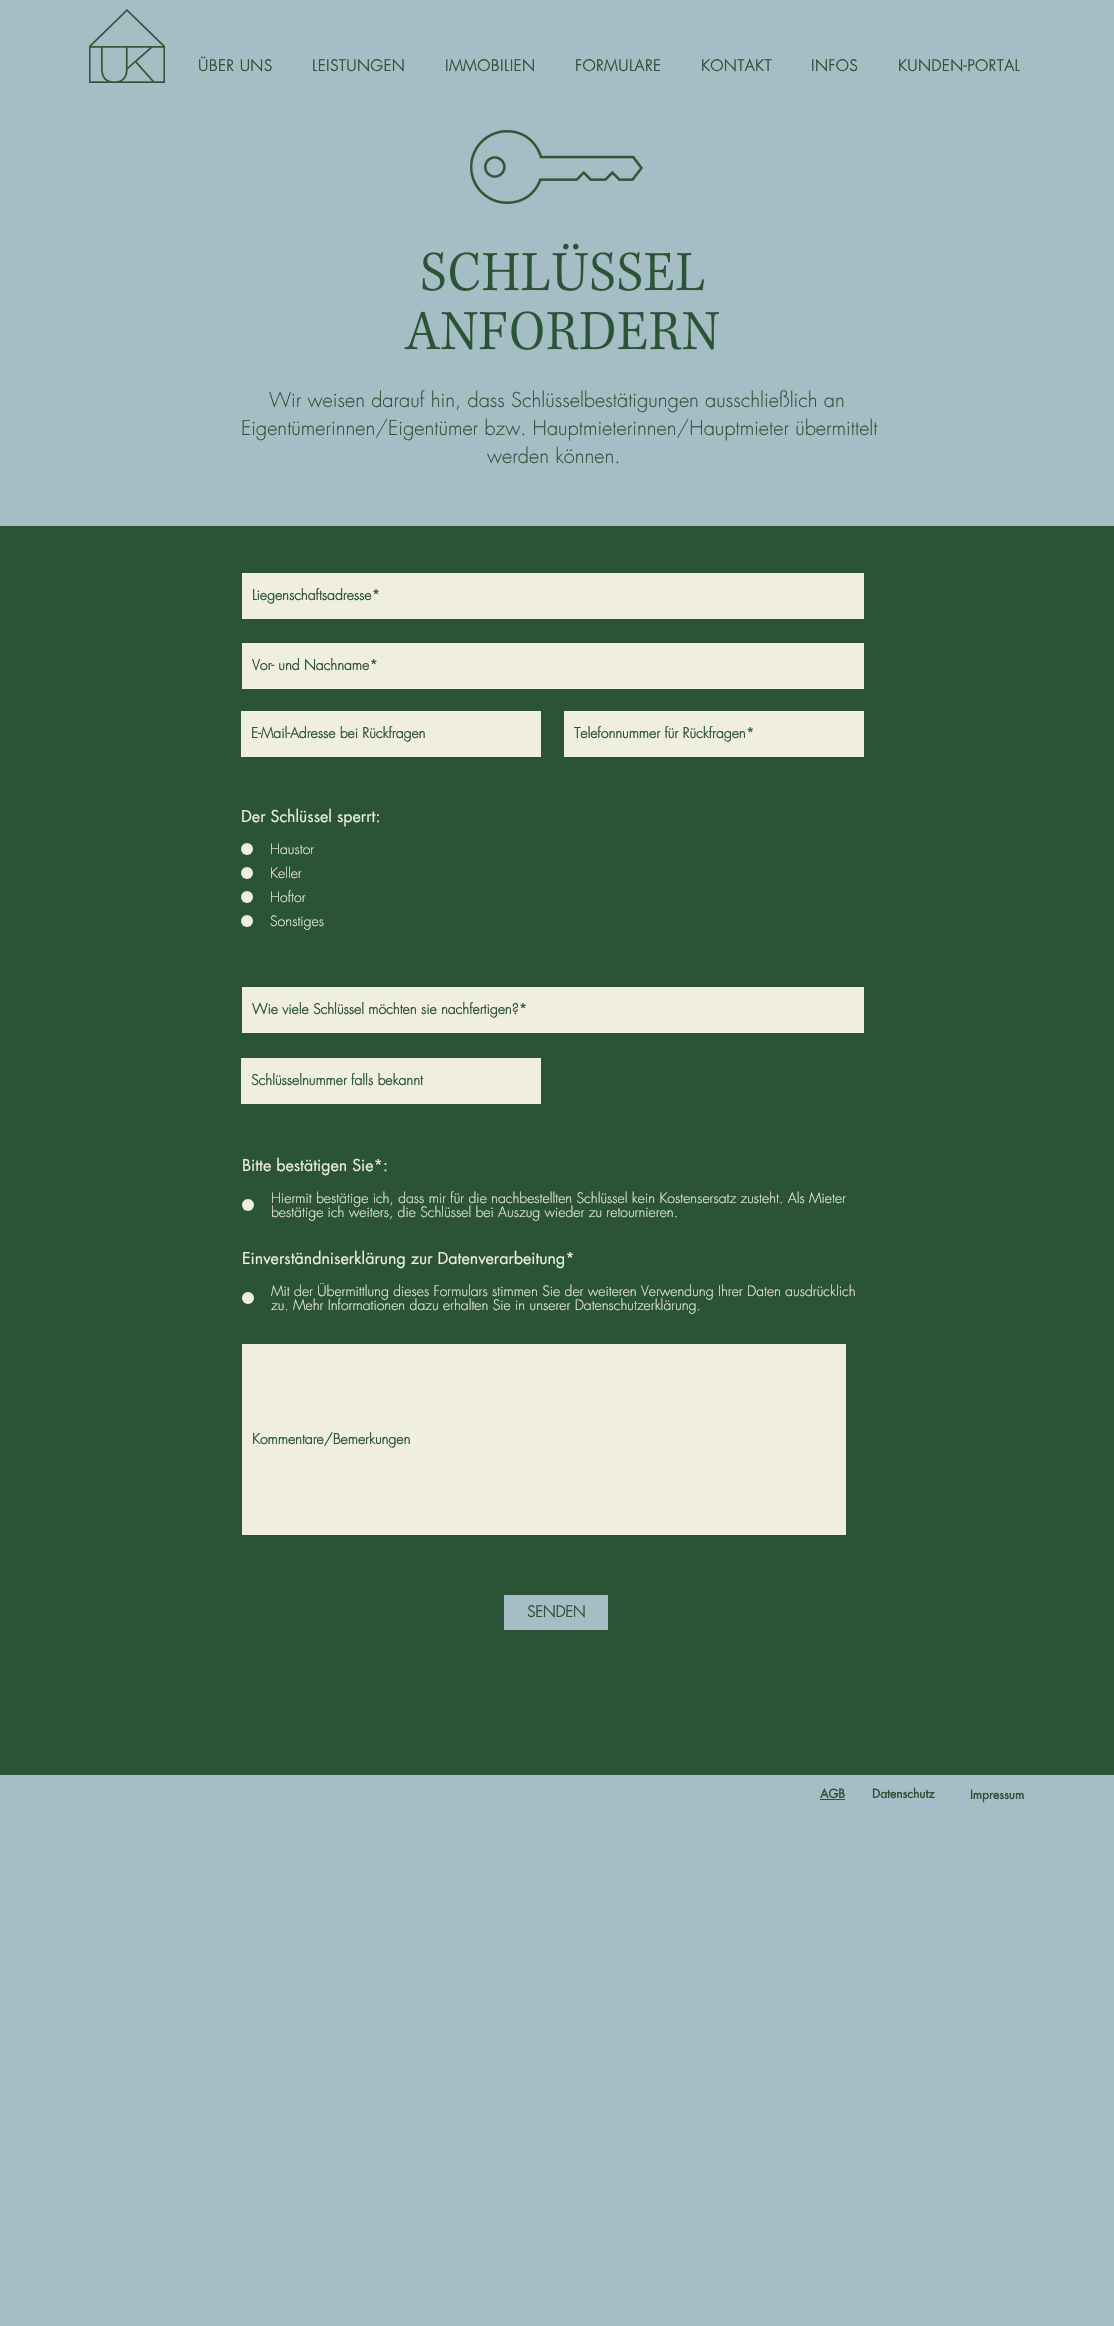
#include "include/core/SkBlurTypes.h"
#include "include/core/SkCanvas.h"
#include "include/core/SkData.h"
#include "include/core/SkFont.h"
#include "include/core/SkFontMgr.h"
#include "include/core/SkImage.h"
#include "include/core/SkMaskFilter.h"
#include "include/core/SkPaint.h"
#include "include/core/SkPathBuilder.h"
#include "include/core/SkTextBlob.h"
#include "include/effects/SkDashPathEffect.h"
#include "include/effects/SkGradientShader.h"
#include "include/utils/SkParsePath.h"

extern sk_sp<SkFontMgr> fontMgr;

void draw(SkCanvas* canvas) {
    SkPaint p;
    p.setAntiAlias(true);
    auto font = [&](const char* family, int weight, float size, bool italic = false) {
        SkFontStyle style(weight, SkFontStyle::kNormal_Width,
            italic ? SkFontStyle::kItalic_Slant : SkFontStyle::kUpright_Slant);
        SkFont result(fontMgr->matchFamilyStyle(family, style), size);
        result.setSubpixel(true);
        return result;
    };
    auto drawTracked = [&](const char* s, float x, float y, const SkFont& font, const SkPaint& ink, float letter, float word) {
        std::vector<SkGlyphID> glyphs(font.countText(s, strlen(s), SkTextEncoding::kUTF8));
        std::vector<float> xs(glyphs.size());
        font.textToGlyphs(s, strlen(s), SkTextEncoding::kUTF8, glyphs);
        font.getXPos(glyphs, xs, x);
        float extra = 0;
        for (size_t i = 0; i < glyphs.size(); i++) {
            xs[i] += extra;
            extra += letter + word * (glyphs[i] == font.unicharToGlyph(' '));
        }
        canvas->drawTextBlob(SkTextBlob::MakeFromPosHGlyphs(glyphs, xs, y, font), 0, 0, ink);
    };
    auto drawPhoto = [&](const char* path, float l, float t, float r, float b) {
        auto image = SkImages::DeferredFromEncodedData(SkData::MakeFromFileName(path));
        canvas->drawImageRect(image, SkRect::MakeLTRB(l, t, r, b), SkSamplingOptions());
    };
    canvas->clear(0xFFA5BDC4);
    drawPhoto("media/1.png", 89, 9, 165, 83);
    auto font1 = font("futura", 700, 15);
    p.setColor(0xFF2B5336);
    {
        const struct { const char* s; float x, y; } items[] = {
            {"ÜBER UNS", 198, 71},
            {"LEISTUNGEN", 312, 71},
            {"IMMOBILIEN", 445, 71},
            {"FORMULARE", 575, 71},
            {"KONTAKT", 701, 71},
            {"INFOS", 811, 71},
            {"KUNDEN-PORTAL", 898, 71},
        };
        for (auto [s, x, y] : items) {
            drawTracked(s, x, y, font1, p, 0.75f, 0);
        }
    }
    drawPhoto("media/2.png", 470, 130, 643, 204);
    drawPhoto("media/3.png", 422, 243, 704, 291);
    drawPhoto("media/4.png", 404, 311, 719, 350);
    auto font2 = font("futura", 300, 20);
    {
        const struct { const char* s; float x, y; } items[] = {
            {"Wir weisen darauf hin, dass Schlüsselbestätigungen ausschließlich an", 269, 407},
            {"Eigentümerinnen/Eigentümer bzw. Hauptmieterinnen/Hauptmieter übermittelt", 241, 435},
            {"werden können.", 487, 463},
        };
        for (auto [s, x, y] : items) {
            canvas->drawString(s, x, y, font2, p);
        }
    }
    canvas->drawRect(SkRect::MakeLTRB(0, 526, 1114, 1775), p);
    p.setColor(0xFFF0EEDF);
    canvas->drawRect(SkRect::MakeLTRB(242, 573, 864, 619), p);
    auto font3 = font("futura", 700, 14);
    p.setColor(0xFF2B5336);
    canvas->drawString("Liegenschaftsadresse*", 252, 600, font3, p);
    p.setColor(0xFFF0EEDF);
    canvas->drawRect(SkRect::MakeLTRB(242, 643, 864, 689), p);
    p.setColor(0xFF2B5336);
    canvas->drawString("Vor- und Nachname*", 252, 670, font3, p);
    p.setColor(0xFFF0EEDF);
    canvas->drawRect(SkRect::MakeLTRB(241, 711, 541, 757), p);
    p.setColor(0xFF2B5336);
    canvas->drawString("E-Mail-Adresse bei Rückfragen", 251, 738, font3, p);
    p.setColor(0xFFF0EEDF);
    canvas->drawRect(SkRect::MakeLTRB(564, 711, 864, 757), p);
    p.setColor(0xFF2B5336);
    canvas->drawString("Telefonnummer für Rückfragen*", 574, 738, font3, p);
    auto font4 = font("futura", 400, 16);
    p.setColor(0xFFF0EEDF);
    canvas->drawString("Der Schlüssel sperrt:", 241, 822, font4, p);
    canvas->drawCircle(247, 849, 6, p);
    auto font5 = font("futura", 300, 14);
    canvas->drawString("Haustor", 270, 854, font5, p);
    canvas->drawCircle(247, 873, 6, p);
    canvas->drawString("Keller", 270, 878, font5, p);
    canvas->drawCircle(247, 897, 6, p);
    canvas->drawString("Hoftor", 270, 902, font5, p);
    canvas->drawCircle(247, 921, 6, p);
    canvas->drawString("Sonstiges", 270, 926, font5, p);
    canvas->drawRect(SkRect::MakeLTRB(242, 987, 864, 1033), p);
    p.setColor(0xFF2B5336);
    canvas->drawString("Wie viele Schlüssel möchten sie nachfertigen?*", 252, 1014, font3, p);
    p.setColor(0xFFF0EEDF);
    canvas->drawRect(SkRect::MakeLTRB(241, 1058, 541, 1104), p);
    p.setColor(0xFF2B5336);
    canvas->drawString("Schlüsselnummer falls bekannt", 251, 1085, font3, p);
    p.setColor(0xFFF0EEDF);
    canvas->drawString("Bitte bestätigen Sie*:", 242, 1171, font4, p);
    canvas->drawCircle(248, 1205, 6, p);
    canvas->drawString("Hiermit bestätige ich, dass mir für die nachbestellten Schlüssel kein Kostensersatz zusteht. Als Mieter", 271, 1203, font5, p);
    canvas->drawString("bestätige ich weiters, die Schlüssel bei Auszug wieder zu retournieren.", 271, 1217, font5, p);
    canvas->drawString("Einverständniserklärung zur Datenverarbeitung*", 242, 1264, font4, p);
    canvas->drawCircle(248, 1298, 6, p);
    canvas->drawString("Mit der Übermittlung dieses Formulars stimmen Sie der weiteren Verwendung Ihrer Daten ausdrücklich", 271, 1296, font5, p);
    canvas->drawString("zu. Mehr Informationen dazu erhalten Sie in unserer Datenschutzerklärung.", 271, 1310, font5, p);
    canvas->drawRect(SkRect::MakeLTRB(242, 1344, 846, 1535), p);
    p.setColor(0xFF2B5336);
    canvas->drawString("Kommentare/Bemerkungen", 252, 1444, font3, p);
    p.setColor(0xFFA5BDC4);
    canvas->drawRect(SkRect::MakeLTRB(504, 1595, 608, 1630), p);
    p.setColor(0xFF2B5336);
    canvas->drawString("SENDEN", 527, 1617, font1, p);
    auto font6 = font("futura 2", 700, 12);
    canvas->drawString("AGB", 820, 1798, font6, p);
    canvas->drawRect(SkRect::MakeLTRB(820, 1799, 845, 1800), p);
    canvas->drawString("Datenschutz", 872, 1798, font6, p);
    canvas->drawString("Impressum", 970, 1799, font6, p);
}
